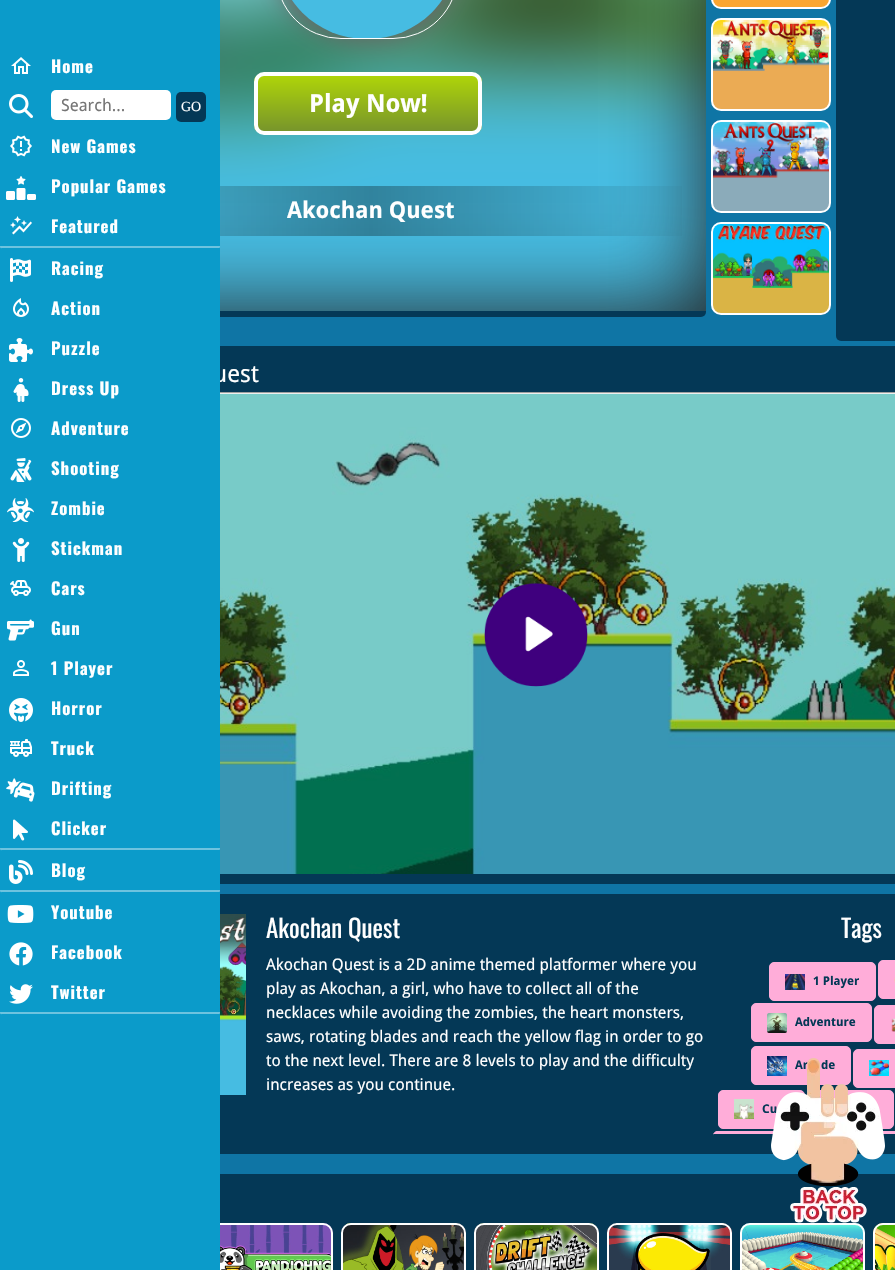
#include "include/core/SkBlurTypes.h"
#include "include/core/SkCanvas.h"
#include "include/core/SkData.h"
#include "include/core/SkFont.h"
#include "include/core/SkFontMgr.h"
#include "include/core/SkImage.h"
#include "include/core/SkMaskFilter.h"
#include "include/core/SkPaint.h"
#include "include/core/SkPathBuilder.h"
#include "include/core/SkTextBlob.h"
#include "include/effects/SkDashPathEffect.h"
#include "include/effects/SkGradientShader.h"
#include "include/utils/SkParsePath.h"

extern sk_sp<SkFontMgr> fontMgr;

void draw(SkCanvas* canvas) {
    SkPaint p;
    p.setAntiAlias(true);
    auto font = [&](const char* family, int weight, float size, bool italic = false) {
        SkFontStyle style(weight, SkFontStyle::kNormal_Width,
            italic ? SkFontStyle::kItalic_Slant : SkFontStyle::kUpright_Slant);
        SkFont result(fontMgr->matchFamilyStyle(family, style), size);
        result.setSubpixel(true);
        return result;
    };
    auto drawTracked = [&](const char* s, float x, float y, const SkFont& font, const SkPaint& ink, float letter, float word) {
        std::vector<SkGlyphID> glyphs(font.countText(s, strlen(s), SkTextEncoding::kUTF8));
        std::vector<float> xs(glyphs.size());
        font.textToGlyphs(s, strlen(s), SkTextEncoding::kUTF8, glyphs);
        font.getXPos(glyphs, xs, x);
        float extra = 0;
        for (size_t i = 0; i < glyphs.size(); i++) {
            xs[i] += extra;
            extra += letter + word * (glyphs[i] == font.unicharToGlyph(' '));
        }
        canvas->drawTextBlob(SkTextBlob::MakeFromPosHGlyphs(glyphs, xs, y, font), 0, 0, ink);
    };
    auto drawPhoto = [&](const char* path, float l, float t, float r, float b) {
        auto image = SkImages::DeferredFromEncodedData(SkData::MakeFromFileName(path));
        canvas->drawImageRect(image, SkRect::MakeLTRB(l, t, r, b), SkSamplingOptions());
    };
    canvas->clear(0xFF0F75A5);
    p.setColor(0xFF043856);
    canvas->drawRoundRect(SkRect::MakeLTRB(36, -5, 706, 317), 5, 5, p);
    canvas->drawRect(SkRect::MakeLTRB(220, 346, 895, 884), p);
    auto font1 = font("Droid Sans", 400, 24);
    p.setColor(0xFFFFFFFF);
    canvas->drawString("uest", 213, 382, font1, p);
    p.setColor(0xFF043856);
    canvas->drawRect(SkRect::MakeLTRB(220, 894, 895, 1154), p);
    p.setColor(0xFFFFADD9);
    canvas->drawPath(SkPathBuilder().moveTo(718, 1131).lineTo(797, 1131).cubicTo(800, 1131, 802, 1133, 802, 1136).lineTo(802, 1134).lineTo(713, 1134).lineTo(713, 1136).cubicTo(713, 1133, 715, 1131, 718, 1131).close().detach(), p);
    canvas->save();
    canvas->clipRect(SkRect::MakeLTRB(706, 904, 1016, 1134));
    p.setStyle(SkPaint::kStroke_Style);
    p.setStrokeWidth(1);
    canvas->drawRoundRect(SkRect::MakeLTRB(713.5f, 1131.5f, 801.5f, 1185.5f), 4.5f, 4.5f, p);
    canvas->restore();
    p.setStyle(SkPaint::kFill_Style);
    canvas->drawRect(SkRect::MakeLTRB(883, 1132, 895, 1134), p);
    canvas->save();
    canvas->clipRect(SkRect::MakeLTRB(706, 904, 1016, 1134));
    p.setStyle(SkPaint::kStroke_Style);
    canvas->drawRoundRect(SkRect::MakeLTRB(804.5f, 1131.5f, 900.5f, 1185.5f), 4.5f, 4.5f, p);
    canvas->restore();
    p.setStyle(SkPaint::kFill_Style);
    p.setColor(0xFF043856);
    canvas->drawRect(SkRect::MakeLTRB(220, 1174, 895, 1270), p);
    drawPhoto("media/40.png", 220, 1223, 333, 1270);
    p.setStyle(SkPaint::kStroke_Style);
    p.setStrokeWidth(2);
    p.setColor(0xFFFFFFFF);
    canvas->drawRoundRect(SkRect::MakeLTRB(209, 1224, 332, 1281), 9, 9, p);
    p.setStyle(SkPaint::kFill_Style);
    p.setColor(0xFF0B9BCA);
    canvas->drawRect(SkRect::MakeLTRB(0, 0, 220, 1270), p);
    drawPhoto("media/1.png", 11, 57, 31, 74);
    auto font2 = font("Oswald", 700, 16.75f);
    p.setColor(0xFFFFFFFF);
    drawTracked("Home", 51, 73, font2, p, 1, 0);
    drawPhoto("media/2.png", 9, 94, 33, 118);
    canvas->drawRoundRect(SkRect::MakeLTRB(51, 90, 171, 120), 5, 5, p);
    auto font3 = font("Droid Sans", 400, 16.75f);
    p.setColor(0xFF757575);
    canvas->drawString("Search...", 61, 111, font3, p);
    p.setColor(0xFF043856);
    canvas->drawRoundRect(SkRect::MakeLTRB(176, 92, 206, 122), 5, 5, p);
    auto font4 = font("Liberation Serif", 400, 14);
    p.setColor(0xFFFFFFFF);
    canvas->drawString("GO", 181, 111, font4, p);
    drawPhoto("media/3.png", 10, 135, 32, 157);
    drawTracked("New Games", 51, 153, font2, p, 1, 0);
    drawPhoto("media/4.png", 6, 176, 36, 200);
    drawTracked("Popular Games", 51, 193, font2, p, 1, 0);
    drawPhoto("media/5.png", 10, 216, 32, 235);
    drawTracked("Featured", 51, 233, font2, p, 1, 0);
    p.setColor(0xFF6DC3DF);
    canvas->drawPath(SkPathBuilder().moveTo(11, 246).lineTo(220, 246).cubicTo(220, 248, 220, 248, 218, 248).lineTo(3, 248).cubicTo(1, 248, 0, 249, 0, 246).close().detach(), p);
    drawPhoto("media/6.png", 10, 258, 31, 282);
    p.setColor(0xFFFFFFFF);
    drawTracked("Racing", 51, 275, font2, p, 1, 0);
    drawPhoto("media/7.png", 13, 298, 29, 317);
    drawTracked("Action", 51, 315, font2, p, 1, 0);
    drawPhoto("media/8.png", 9, 338, 33, 362);
    drawTracked("Puzzle", 51, 355, font2, p, 1, 0);
    drawPhoto("media/9.png", 13, 378, 29, 402);
    drawTracked("Dress Up", 51, 395, font2, p, 1, 0);
    drawPhoto("media/10.png", 11, 418, 31, 438);
    drawTracked("Adventure", 51, 435, font2, p, 1, 0);
    drawPhoto("media/11.png", 10, 458, 32, 482);
    drawTracked("Shooting", 51, 475, font2, p, 1, 0);
    drawPhoto("media/12.png", 7, 498, 34, 522);
    drawTracked("Zombie", 51, 515, font2, p, 1, 0);
    drawPhoto("media/13.png", 12, 538, 30, 562);
    drawTracked("Stickman", 51, 555, font2, p, 1, 0);
    drawPhoto("media/14.png", 10, 580, 31, 596);
    drawTracked("Cars", 51, 595, font2, p, 1, 0);
    drawPhoto("media/15.png", 7, 619, 34, 641);
    drawTracked("Gun", 51, 635, font2, p, 1, 0);
    drawPhoto("media/16.png", 13, 660, 29, 676);
    drawTracked("1 Player", 51, 675, font2, p, 1, 0);
    drawPhoto("media/17.png", 9, 698, 33, 722);
    drawTracked("Horror", 51, 715, font2, p, 1, 0);
    drawPhoto("media/18.png", 10, 739, 32, 757);
    drawTracked("Truck", 51, 755, font2, p, 1, 0);
    drawPhoto("media/19.png", 6, 778, 35, 802);
    drawTracked("Drifting", 51, 795, font2, p, 1, 0);
    drawPhoto("media/20.png", 13, 819, 28, 841);
    drawTracked("Clicker", 51, 835, font2, p, 1, 0);
    p.setColor(0xFF6DC3DF);
    canvas->drawPath(SkPathBuilder().moveTo(11, 848).lineTo(220, 848).cubicTo(220, 850, 220, 850, 218, 850).lineTo(3, 850).cubicTo(1, 850, 0, 851, 0, 848).close().detach(), p);
    drawPhoto("media/21.png", 9, 860, 33, 884);
    p.setColor(0xFFFFFFFF);
    drawTracked("Blog", 51, 877, font2, p, 1, 0);
    p.setColor(0xFF6DC3DF);
    canvas->drawPath(SkPathBuilder().moveTo(11, 890).lineTo(220, 890).cubicTo(220, 892, 220, 892, 218, 892).lineTo(3, 892).cubicTo(1, 892, 0, 893, 0, 890).close().detach(), p);
    drawPhoto("media/22.png", 7, 905, 34, 923);
    p.setColor(0xFFFFFFFF);
    drawTracked("Youtube", 51, 919, font2, p, 1, 0);
    drawPhoto("media/23.png", 9, 942, 33, 966);
    drawTracked("Facebook", 51, 959, font2, p, 1, 0);
    drawPhoto("media/24.png", 9, 984, 33, 1004);
    drawTracked("Twitter", 51, 999, font2, p, 1, 0);
    p.setColor(0xFF6DC3DF);
    canvas->drawPath(SkPathBuilder().moveTo(11, 1012).lineTo(220, 1012).cubicTo(220, 1014, 220, 1014, 218, 1014).lineTo(3, 1014).cubicTo(1, 1014, 0, 1015, 0, 1012).close().detach(), p);
    p.setColor(0xFF222222);
    canvas->drawRect(SkRect::MakeLTRB(220, 0, 706, 311), p);
    drawPhoto("media/26.png", 220, 0, 706, 311);
    p.setColor(0xFF666666);
    p.setMaskFilter(SkMaskFilter::MakeBlur(kNormal_SkBlurStyle, 11));
    canvas->drawRoundRect(SkRect::MakeLTRB(276, -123, 458, 39), 90, 90, p);
    p.setMaskFilter(nullptr);
    drawPhoto("media/25.png", 292, 0, 442, 39);
    p.setStyle(SkPaint::kStroke_Style);
    p.setStrokeWidth(1);
    p.setColor(0xFFFFFFFF);
    canvas->drawRoundRect(SkRect::MakeLTRB(276.5f, -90.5f, 457.5f, 38.5f), 89.5f, 89.5f, p);
    canvas->save();
    canvas->clipPath(SkPathBuilder().moveTo(264, 72).lineTo(472, 72).cubicTo(477.5f, 72, 482, 76.5f, 482, 82).lineTo(482, 125).cubicTo(482, 130.5f, 477.5f, 135, 472, 135).lineTo(264, 135).cubicTo(258.5f, 135, 254, 130.5f, 254, 125).lineTo(254, 82).cubicTo(254, 76.5f, 258.5f, 72, 264, 72).close().detach(), true);
    p.setStyle(SkPaint::kFill_Style);
    {
        const SkColor colors[] = {0xFFAED409, 0xFF77952B};
        const float stops[] = {0, 1};
        const SkPoint ends[] = {{368, 76}, {368, 131}};
        p.setShader(SkGradientShader::MakeLinear(ends, colors, stops, 2, SkTileMode::kClamp));
        p.setAlpha(255);
    }
    canvas->drawRect(SkRect::MakeLTRB(254, 76, 482, 131), p);
    canvas->restore();
    p.setStyle(SkPaint::kStroke_Style);
    p.setStrokeWidth(4);
    p.setShader(nullptr);
    p.setColor(0xFFFFFFFF);
    canvas->drawRoundRect(SkRect::MakeLTRB(256, 74, 480, 133), 8, 8, p);
    auto font5 = font("Droid Sans", 700, 25);
    p.setStyle(SkPaint::kFill_Style);
    canvas->drawString("Play Now!", 309, 112, font5, p);
    {
        const SkColor colors[] = {0x00000000, 0x4D000000, 0x00000000};
        const float stops[] = {0, 0.5f, 1};
        const SkPoint ends[] = {{36, 211}, {706, 211}};
        p.setShader(SkGradientShader::MakeLinear(ends, colors, stops, 3, SkTileMode::kClamp));
        p.setAlpha(255);
    }
    canvas->drawRect(SkRect::MakeLTRB(220, 186, 682, 236), p);
    auto font6 = font("Droid Sans", 700, 23);
    p.setShader(nullptr);
    p.setColor(0xFFFFFFFF);
    canvas->drawString("Akochan Quest", 287, 218, font6, p);
    canvas->drawRoundRect(SkRect::MakeLTRB(712, -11, 830, 8), 9, 9, p);
    p.setStyle(SkPaint::kStroke_Style);
    p.setStrokeWidth(2);
    canvas->drawRoundRect(SkRect::MakeLTRB(712, -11, 830, 8), 9, 9, p);
    drawPhoto("media/27.png", 713, 0, 829, 7);
    p.setStyle(SkPaint::kFill_Style);
    canvas->drawRoundRect(SkRect::MakeLTRB(712, 19, 830, 110), 9, 9, p);
    p.setStyle(SkPaint::kStroke_Style);
    canvas->drawRoundRect(SkRect::MakeLTRB(712, 19, 830, 110), 9, 9, p);
    drawPhoto("media/28.png", 713, 20, 829, 109);
    p.setStyle(SkPaint::kFill_Style);
    canvas->drawRoundRect(SkRect::MakeLTRB(712, 121, 830, 212), 9, 9, p);
    p.setStyle(SkPaint::kStroke_Style);
    canvas->drawRoundRect(SkRect::MakeLTRB(712, 121, 830, 212), 9, 9, p);
    drawPhoto("media/29.png", 713, 122, 829, 211);
    p.setStyle(SkPaint::kFill_Style);
    canvas->drawRoundRect(SkRect::MakeLTRB(712, 223, 830, 314), 9, 9, p);
    p.setStyle(SkPaint::kStroke_Style);
    canvas->drawRoundRect(SkRect::MakeLTRB(712, 223, 830, 314), 9, 9, p);
    drawPhoto("media/30.png", 713, 224, 829, 313);
    p.setStyle(SkPaint::kFill_Style);
    p.setColor(0xFF043856);
    canvas->drawRoundRect(SkRect::MakeLTRB(836, -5, 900, 341), 5, 5, p);
    p.setColor(0xFF9F9F9F);
    canvas->drawRect(SkRect::MakeLTRB(220, 392, 895, 393), p);
    p.setColor(0xFFEEEEEE);
    canvas->drawRect(SkRect::MakeLTRB(220, 393, 895, 394), p);
    drawPhoto("media/31.png", 220, 394, 895, 874);
    drawPhoto("media/32.png", 220, 914, 246, 1095);
    auto font7 = font("Oswald", 400, 25);
    p.setColor(0xFFFFFFFF);
    canvas->drawString("Akochan Quest", 266, 938, font7, p);
    auto font8 = font("Droid Sans", 400, 16);
    {
        const struct { const char* s; float x, y; } items[] = {
            {"Akochan Quest is a 2D anime themed platformer where you", 266, 970},
            {"play as Akochan, a girl, who have to collect all of the", 266, 994},
            {"necklaces while avoiding the zombies, the heart monsters,", 266, 1018},
            {"saws, rotating blades and reach the yellow flag in order to go", 266, 1042},
            {"to the next level. There are 8 levels to play and the difficulty", 266, 1066},
            {"increases as you continue.", 266, 1090},
        };
        for (auto [s, x, y] : items) {
            canvas->drawString(s, x, y, font8, p);
        }
    }
    canvas->drawString("Tags", 841, 938, font7, p);
    p.setColor(0xFFFFADD9);
    canvas->drawRoundRect(SkRect::MakeLTRB(769.5f, 962.5f, 875.5f, 1000.5f), 4.5f, 4.5f, p);
    p.setStyle(SkPaint::kStroke_Style);
    p.setStrokeWidth(1);
    canvas->drawRoundRect(SkRect::MakeLTRB(769.5f, 962.5f, 875.5f, 1000.5f), 4.5f, 4.5f, p);
    drawPhoto("media/33.png", 785, 974, 805, 990);
    auto font9 = font("Droid Sans", 700, 12);
    p.setStyle(SkPaint::kFill_Style);
    p.setColor(0xFF043856);
    canvas->drawString("1 Player", 813, 985, font9, p);
    p.setColor(0xFFFFADD9);
    canvas->drawRoundRect(SkRect::MakeLTRB(878.5f, 960.5f, 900.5f, 998.5f), 4.5f, 4.5f, p);
    p.setStyle(SkPaint::kStroke_Style);
    canvas->drawRoundRect(SkRect::MakeLTRB(878.5f, 960.5f, 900.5f, 998.5f), 4.5f, 4.5f, p);
    drawPhoto("media/34.png", 894, 977, 895, 983);
    p.setStyle(SkPaint::kFill_Style);
    canvas->drawRoundRect(SkRect::MakeLTRB(751.5f, 1003.5f, 871.5f, 1041.5f), 4.5f, 4.5f, p);
    p.setStyle(SkPaint::kStroke_Style);
    canvas->drawRoundRect(SkRect::MakeLTRB(751.5f, 1003.5f, 871.5f, 1041.5f), 4.5f, 4.5f, p);
    drawPhoto("media/35.png", 767, 1013, 787, 1033);
    p.setStyle(SkPaint::kFill_Style);
    p.setColor(0xFF043856);
    canvas->drawString("Adventure", 795, 1026, font9, p);
    p.setColor(0xFFFFADD9);
    canvas->drawRoundRect(SkRect::MakeLTRB(874.5f, 1005.5f, 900.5f, 1043.5f), 4.5f, 4.5f, p);
    p.setStyle(SkPaint::kStroke_Style);
    canvas->drawRoundRect(SkRect::MakeLTRB(874.5f, 1005.5f, 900.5f, 1043.5f), 4.5f, 4.5f, p);
    drawPhoto("media/36.png", 891, 1018, 895, 1032);
    p.setStyle(SkPaint::kFill_Style);
    canvas->drawRoundRect(SkRect::MakeLTRB(751.5f, 1046.5f, 850.5f, 1084.5f), 4.5f, 4.5f, p);
    p.setStyle(SkPaint::kStroke_Style);
    canvas->drawRoundRect(SkRect::MakeLTRB(751.5f, 1046.5f, 850.5f, 1084.5f), 4.5f, 4.5f, p);
    drawPhoto("media/37.png", 767, 1056, 787, 1076);
    p.setStyle(SkPaint::kFill_Style);
    p.setColor(0xFF043856);
    canvas->drawString("Ar", 795, 1069, font9, p);
    canvas->drawString("de", 821, 1069, font9, p);
    p.setColor(0xFFFFADD9);
    canvas->drawRoundRect(SkRect::MakeLTRB(853.5f, 1049.5f, 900.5f, 1087.5f), 4.5f, 4.5f, p);
    p.setStyle(SkPaint::kStroke_Style);
    canvas->drawRoundRect(SkRect::MakeLTRB(853.5f, 1049.5f, 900.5f, 1087.5f), 4.5f, 4.5f, p);
    drawPhoto("media/38.png", 869, 1060, 889, 1076);
    p.setStyle(SkPaint::kFill_Style);
    canvas->drawRoundRect(SkRect::MakeLTRB(718.5f, 1090.5f, 804.5f, 1128.5f), 4.5f, 4.5f, p);
    p.setStyle(SkPaint::kStroke_Style);
    canvas->drawRoundRect(SkRect::MakeLTRB(718.5f, 1090.5f, 804.5f, 1128.5f), 4.5f, 4.5f, p);
    drawPhoto("media/39.png", 734, 1099, 754, 1119);
    p.setStyle(SkPaint::kFill_Style);
    p.setColor(0xFF043856);
    canvas->drawString("Cu", 762, 1113, font9, p);
    p.setColor(0xFFFFADD9);
    canvas->drawRoundRect(SkRect::MakeLTRB(807.5f, 1090.5f, 893.5f, 1128.5f), 4.5f, 4.5f, p);
    p.setStyle(SkPaint::kStroke_Style);
    canvas->drawRoundRect(SkRect::MakeLTRB(807.5f, 1090.5f, 893.5f, 1128.5f), 4.5f, 4.5f, p);
    drawPhoto("media/41.png", 341, 1223, 466, 1270);
    p.setStrokeWidth(2);
    p.setColor(0xFFFFFFFF);
    canvas->drawRoundRect(SkRect::MakeLTRB(342, 1224, 465, 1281), 9, 9, p);
    drawPhoto("media/42.png", 474, 1223, 599, 1270);
    canvas->drawRoundRect(SkRect::MakeLTRB(475, 1224, 598, 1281), 9, 9, p);
    drawPhoto("media/43.png", 607, 1223, 732, 1270);
    canvas->drawRoundRect(SkRect::MakeLTRB(608, 1224, 731, 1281), 9, 9, p);
    drawPhoto("media/44.png", 740, 1223, 865, 1270);
    canvas->drawRoundRect(SkRect::MakeLTRB(741, 1224, 864, 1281), 9, 9, p);
    drawPhoto("media/45.png", 873, 1223, 895, 1270);
    canvas->drawRoundRect(SkRect::MakeLTRB(874, 1224, 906, 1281), 9, 9, p);
    drawPhoto("media/46.png", 771, 1058, 885, 1223);
}
